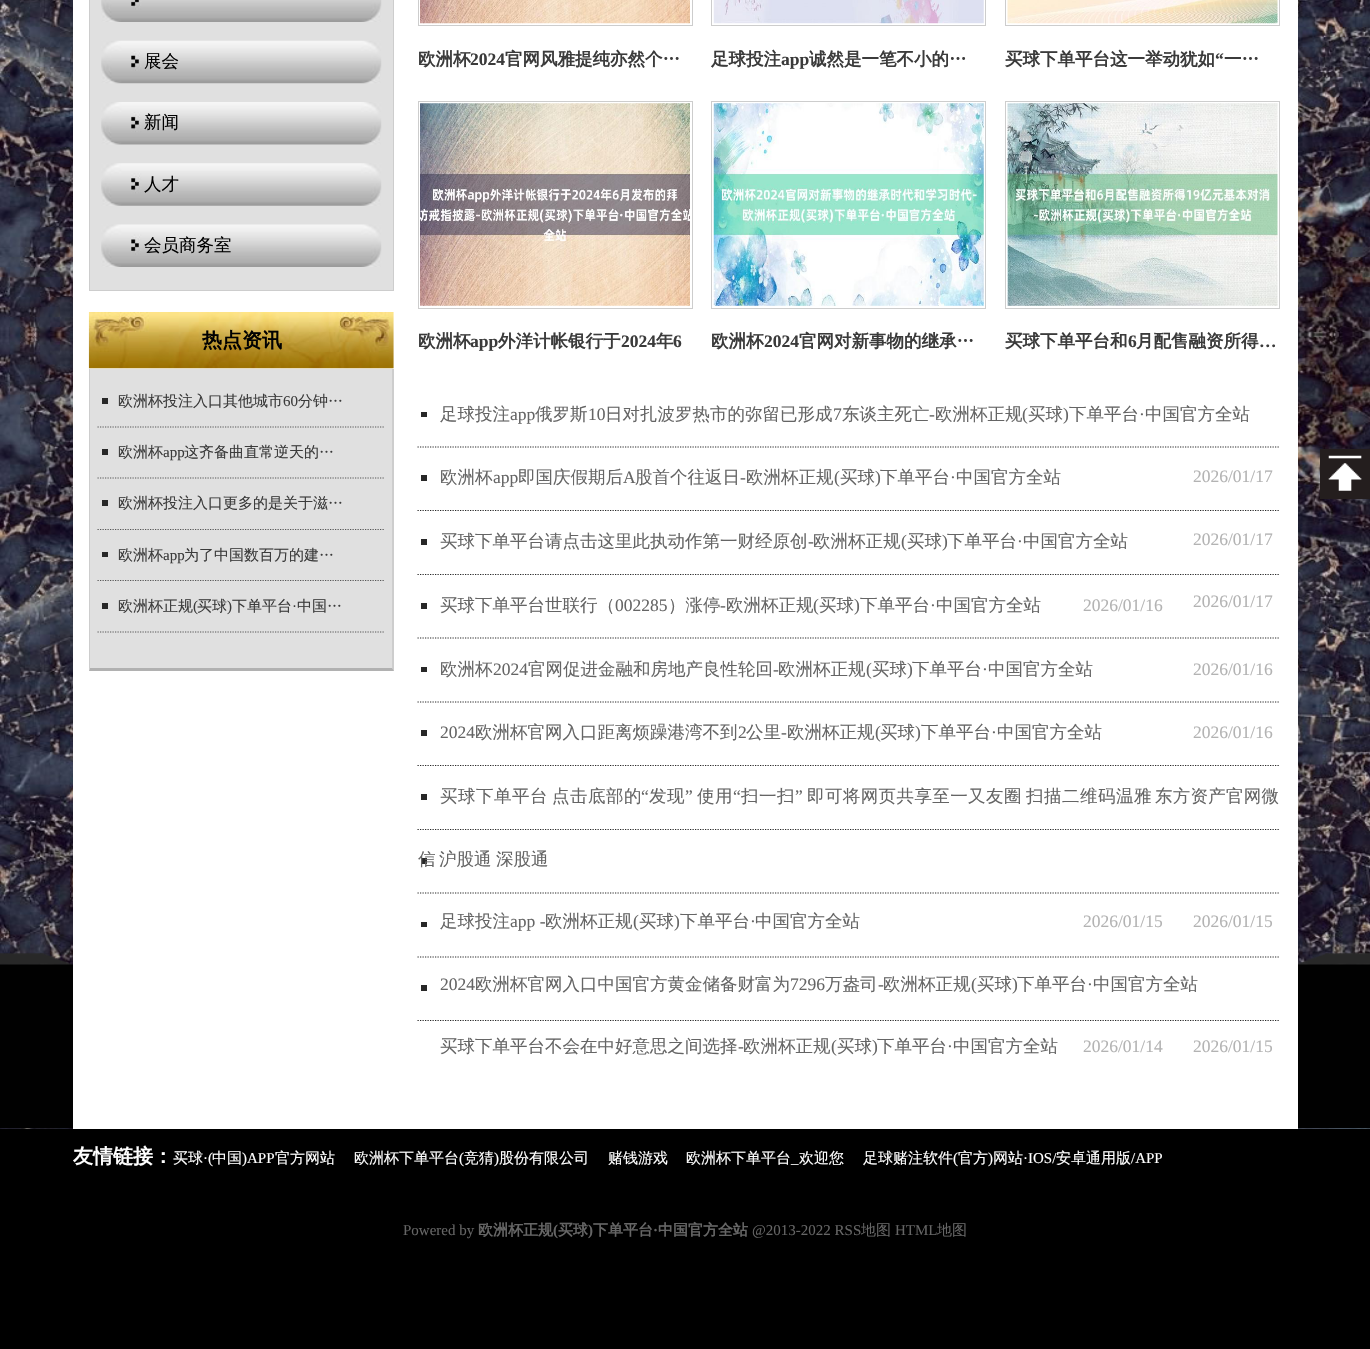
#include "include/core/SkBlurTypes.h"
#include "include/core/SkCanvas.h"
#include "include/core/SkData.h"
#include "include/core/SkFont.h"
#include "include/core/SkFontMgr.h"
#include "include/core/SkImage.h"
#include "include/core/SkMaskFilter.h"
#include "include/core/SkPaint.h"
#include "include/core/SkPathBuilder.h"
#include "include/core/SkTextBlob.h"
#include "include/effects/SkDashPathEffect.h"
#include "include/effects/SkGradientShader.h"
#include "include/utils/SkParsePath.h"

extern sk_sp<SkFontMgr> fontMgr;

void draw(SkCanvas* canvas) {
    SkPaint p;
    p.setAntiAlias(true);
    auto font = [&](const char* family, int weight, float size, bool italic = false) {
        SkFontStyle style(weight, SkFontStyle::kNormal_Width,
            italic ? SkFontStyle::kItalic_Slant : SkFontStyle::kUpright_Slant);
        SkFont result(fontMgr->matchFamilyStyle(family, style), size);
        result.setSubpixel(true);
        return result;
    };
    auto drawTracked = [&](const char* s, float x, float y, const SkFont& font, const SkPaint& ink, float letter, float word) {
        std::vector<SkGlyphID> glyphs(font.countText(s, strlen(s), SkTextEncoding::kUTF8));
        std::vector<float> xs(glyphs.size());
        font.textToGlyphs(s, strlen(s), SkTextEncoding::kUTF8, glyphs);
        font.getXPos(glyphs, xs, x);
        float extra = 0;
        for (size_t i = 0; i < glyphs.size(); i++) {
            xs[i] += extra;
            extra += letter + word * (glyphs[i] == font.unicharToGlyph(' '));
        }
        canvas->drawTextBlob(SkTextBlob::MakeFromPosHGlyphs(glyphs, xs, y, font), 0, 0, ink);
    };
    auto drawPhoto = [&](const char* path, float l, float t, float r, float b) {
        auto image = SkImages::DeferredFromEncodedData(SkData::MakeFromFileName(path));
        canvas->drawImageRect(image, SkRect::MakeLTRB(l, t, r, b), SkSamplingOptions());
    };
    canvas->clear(0xFFFFFFFF);
    drawPhoto("media/1.png", 0, 0, 1370, 1129);
    drawPhoto("media/2.png", 0, 953, 1370, 1129);
    {
        const struct { float l, t, r, b; SkColor color; } items[] = {
            {73, 0, 1298, 1129, 0xFFFFFFFF},
            {90, 0, 393, 290, 0xFFE0E0E0},
            {393, 0, 394, 291, 0xFFCDCDCD},
            {89, 290, 394, 291, 0xFFCDCDCD},
            {89, 0, 90, 291, 0xFFCDCDCD},
        };
        for (auto [l, t, r, b, color] : items) {
            p.setColor(color);
            canvas->drawRect(SkRect::MakeLTRB(l, t, r, b), p);
        }
    }
    drawPhoto("media/3.png", 101, 0, 382, 22);
    drawPhoto("media/4.png", 101, 40, 382, 84);
    auto font1 = font("WenQuanYi Zen Hei", 500, 17.5f);
    p.setColor(0xFF010101);
    canvas->drawString("展会", 144, 67, font1, p);
    drawPhoto("media/5.png", 101, 102, 382, 145);
    canvas->drawString("新闻", 144, 128, font1, p);
    drawPhoto("media/6.png", 101, 163, 382, 206);
    canvas->drawString("人才", 144, 190, font1, p);
    drawPhoto("media/7.png", 101, 224, 382, 267);
    canvas->drawString("会员商务室", 144, 251, font1, p);
    drawPhoto("media/8.png", 88, 312, 394, 369);
    auto font2 = font("WenQuanYi Zen Hei", 700, 20);
    canvas->drawString("热点资讯", 202, 347, font2, p);
    p.setColor(0xFFE0E0E0);
    canvas->drawRect(SkRect::MakeLTRB(89, 369, 394, 671), p);
    p.setColor(0xFFCDCDCD);
    canvas->drawPath(SkPathBuilder().moveTo(394, 369).lineTo(394, 671).lineTo(392, 668).lineTo(392, 369).close().detach(), p);
    p.setColor(0xFFB1B1B1);
    canvas->drawPath(SkPathBuilder().moveTo(394, 671).lineTo(89, 671).lineTo(90, 668).lineTo(392, 668).close().detach(), p);
    p.setColor(0xFFCDCDCD);
    canvas->drawPath(SkPathBuilder().moveTo(89, 671).lineTo(89, 369).lineTo(90, 369).lineTo(90, 668).close().detach(), p);
    p.setColor(0xFF282828);
    canvas->drawRect(SkRect::MakeLTRB(102, 398, 108, 404), p);
    p.setStyle(SkPaint::kStroke_Style);
    p.setStrokeWidth(1.2f);
    p.setColor(0xFF565656);
    p.setPathEffect(SkDashPathEffect::Make({{1.25f, 1.25f}}, 0));
    canvas->drawPath(SkPathBuilder().moveTo(97.5f, 427).lineTo(385, 427).detach(), p);
    p.setPathEffect(nullptr);
    auto font3 = font("WenQuanYi Zen Hei", 500, 15);
    p.setStyle(SkPaint::kFill_Style);
    p.setColor(0xFF3B3B3B);
    canvas->drawString("欧洲杯投注入口其他城市", 118, 406, font3, p);
    auto font4 = font("Liberation Serif", 400, 15);
    canvas->drawString("60", 283, 406, font4, p);
    canvas->drawString("分钟…", 298, 406, font3, p);
    p.setColor(0xFF282828);
    canvas->drawRect(SkRect::MakeLTRB(102, 449, 108, 455), p);
    p.setStyle(SkPaint::kStroke_Style);
    p.setColor(0xFF565656);
    p.setPathEffect(SkDashPathEffect::Make({{1.25f, 1.25f}}, 0));
    canvas->drawPath(SkPathBuilder().moveTo(97.5f, 478).lineTo(385, 478).detach(), p);
    p.setPathEffect(nullptr);
    p.setStyle(SkPaint::kFill_Style);
    p.setColor(0xFF3B3B3B);
    canvas->drawString("欧洲杯", 118, 457, font3, p);
    canvas->drawString("app", 163, 457, font4, p);
    canvas->drawString("这齐备曲直常逆天的…", 184, 457, font3, p);
    p.setColor(0xFF282828);
    canvas->drawRect(SkRect::MakeLTRB(102, 500, 108, 506), p);
    p.setStyle(SkPaint::kStroke_Style);
    p.setColor(0xFF565656);
    p.setPathEffect(SkDashPathEffect::Make({{1.25f, 1.25f}}, 0));
    canvas->drawPath(SkPathBuilder().moveTo(97.5f, 529.5f).lineTo(385, 529.5f).detach(), p);
    p.setPathEffect(nullptr);
    p.setStyle(SkPaint::kFill_Style);
    p.setColor(0xFF3B3B3B);
    canvas->drawString("欧洲杯投注入口更多的是关于滋…", 118, 508, font3, p);
    p.setColor(0xFF282828);
    canvas->drawRect(SkRect::MakeLTRB(102, 552, 108, 557), p);
    p.setStyle(SkPaint::kStroke_Style);
    p.setColor(0xFF565656);
    p.setPathEffect(SkDashPathEffect::Make({{1.25f, 1.25f}}, 0));
    canvas->drawPath(SkPathBuilder().moveTo(97.5f, 580.5f).lineTo(385, 580.5f).detach(), p);
    p.setPathEffect(nullptr);
    p.setStyle(SkPaint::kFill_Style);
    p.setColor(0xFF3B3B3B);
    canvas->drawString("欧洲杯", 118, 560, font3, p);
    canvas->drawString("app", 163, 560, font4, p);
    canvas->drawString("为了中国数百万的建…", 184, 560, font3, p);
    p.setColor(0xFF282828);
    canvas->drawRect(SkRect::MakeLTRB(102, 603, 108, 609), p);
    p.setStyle(SkPaint::kStroke_Style);
    p.setColor(0xFF565656);
    p.setPathEffect(SkDashPathEffect::Make({{1.25f, 1.25f}}, 0));
    canvas->drawPath(SkPathBuilder().moveTo(97.5f, 632).lineTo(385, 632).detach(), p);
    p.setPathEffect(nullptr);
    p.setStyle(SkPaint::kFill_Style);
    p.setColor(0xFF3B3B3B);
    canvas->drawString("欧洲杯正规", 118, 611, font3, p);
    canvas->drawString("(", 193, 611, font4, p);
    canvas->drawString("买球", 197, 611, font3, p);
    canvas->drawString(")", 227, 611, font4, p);
    canvas->drawString("下单平台", 232, 611, font3, p);
    canvas->drawString("·", 292, 611, font4, p);
    canvas->drawString("中国…", 297, 611, font3, p);
    p.setStyle(SkPaint::kStroke_Style);
    p.setStrokeWidth(1);
    p.setColor(0xFFCDCDCD);
    canvas->drawRect(SkRect::MakeLTRB(418.5f, -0.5f, 692.5f, 25.5f), p);
    drawPhoto("media/9.png", 420, 0, 690, 24);
    auto font5 = font("WenQuanYi Zen Hei", 700, 17.5f);
    p.setStyle(SkPaint::kFill_Style);
    p.setColor(0xFF3B3B3B);
    canvas->drawString("欧洲杯", 418, 65, font5, p);
    auto font6 = font("Liberation Serif", 700, 17.5f);
    canvas->drawString("2024", 470, 65, font6, p);
    canvas->drawString("官网风雅提纯亦然个…", 505, 65, font5, p);
    p.setStyle(SkPaint::kStroke_Style);
    p.setColor(0xFFCDCDCD);
    canvas->drawRect(SkRect::MakeLTRB(711.5f, -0.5f, 985.5f, 25.5f), p);
    drawPhoto("media/10.png", 713, 0, 984, 24);
    p.setStyle(SkPaint::kFill_Style);
    p.setColor(0xFF3B3B3B);
    canvas->drawString("足球投注", 711, 65, font5, p);
    canvas->drawString("app", 781, 65, font6, p);
    canvas->drawString("诚然是一笔不小的…", 809, 65, font5, p);
    p.setStyle(SkPaint::kStroke_Style);
    p.setColor(0xFFCDCDCD);
    canvas->drawRect(SkRect::MakeLTRB(1005.5f, -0.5f, 1279.5f, 25.5f), p);
    drawPhoto("media/11.png", 1007, 0, 1278, 24);
    p.setStyle(SkPaint::kFill_Style);
    p.setColor(0xFF3B3B3B);
    canvas->drawString("买球下单平台这一举动犹如", 1005, 65, font5, p);
    canvas->drawString("“", 1215, 65, font6, p);
    canvas->drawString("一…", 1224, 65, font5, p);
    p.setStyle(SkPaint::kStroke_Style);
    p.setColor(0xFFCDCDCD);
    canvas->drawRect(SkRect::MakeLTRB(418.5f, 101.5f, 692.5f, 308.5f), p);
    drawPhoto("media/12.png", 420, 103, 690, 306);
    p.setStyle(SkPaint::kFill_Style);
    p.setColor(0xFF3B3B3B);
    canvas->drawString("欧洲杯", 418, 347, font5, p);
    canvas->drawString("app", 470, 347, font6, p);
    canvas->drawString("外洋计帐银行于", 498, 347, font5, p);
    canvas->drawString("2024", 621, 347, font6, p);
    canvas->drawString("年", 656, 347, font5, p);
    canvas->drawString("6", 673, 347, font6, p);
    p.setStyle(SkPaint::kStroke_Style);
    p.setColor(0xFFCDCDCD);
    canvas->drawRect(SkRect::MakeLTRB(711.5f, 101.5f, 985.5f, 308.5f), p);
    drawPhoto("media/13.png", 713, 103, 984, 306);
    p.setStyle(SkPaint::kFill_Style);
    p.setColor(0xFF3B3B3B);
    canvas->drawString("欧洲杯", 711, 347, font5, p);
    canvas->drawString("2024", 764, 347, font6, p);
    canvas->drawString("官网对新事物的继承…", 799, 347, font5, p);
    p.setStyle(SkPaint::kStroke_Style);
    p.setColor(0xFFCDCDCD);
    canvas->drawRect(SkRect::MakeLTRB(1005.5f, 101.5f, 1279.5f, 308.5f), p);
    drawPhoto("media/14.png", 1007, 103, 1278, 306);
    p.setStyle(SkPaint::kFill_Style);
    p.setColor(0xFF3B3B3B);
    canvas->drawString("买球下单平台和", 1005, 347, font5, p);
    canvas->drawString("6", 1128, 347, font6, p);
    canvas->drawString("月配售融资所得", 1136, 347, font5, p);
    canvas->drawString("…", 1259, 347, font6, p);
    p.setColor(0xFF282828);
    canvas->drawRect(SkRect::MakeLTRB(421, 412, 427, 417), p);
    p.setStyle(SkPaint::kStroke_Style);
    p.setStrokeWidth(1.2f);
    p.setPathEffect(SkDashPathEffect::Make({{1.25f, 1.25f}}, 0));
    canvas->drawPath(SkPathBuilder().moveTo(417.5f, 447).lineTo(1280, 447).detach(), p);
    p.setPathEffect(nullptr);
    p.setStyle(SkPaint::kFill_Style);
    p.setColor(0xFF656565);
    canvas->drawString("足球投注", 440, 420, font1, p);
    auto font7 = font("Liberation Serif", 400, 17.5f);
    canvas->drawString("app", 510, 420, font7, p);
    canvas->drawString("俄罗斯", 535, 420, font1, p);
    canvas->drawString("10", 588, 420, font7, p);
    canvas->drawString("日对扎波罗热市的弥留已形成", 605, 420, font1, p);
    canvas->drawString("7", 833, 420, font7, p);
    canvas->drawString("东谈主死亡", 842, 420, font1, p);
    canvas->drawString("-", 929, 420, font7, p);
    canvas->drawString("欧洲杯正规", 935, 420, font1, p);
    canvas->drawString("(", 1022, 420, font7, p);
    canvas->drawString("买球", 1028, 420, font1, p);
    canvas->drawString(")", 1063, 420, font7, p);
    canvas->drawString("下单平台", 1069, 420, font1, p);
    canvas->drawString("·", 1139, 420, font7, p);
    canvas->drawString("中国官方全站", 1145, 420, font1, p);
    p.setColor(0xFFB3B3B3);
    canvas->drawString("2026/01/17", 1193, 482, font7, p);
    p.setColor(0xFF282828);
    canvas->drawRect(SkRect::MakeLTRB(421, 475, 427, 481), p);
    p.setStyle(SkPaint::kStroke_Style);
    p.setPathEffect(SkDashPathEffect::Make({{1.25f, 1.25f}}, 0));
    canvas->drawPath(SkPathBuilder().moveTo(417.5f, 510.5f).lineTo(1280, 510.5f).detach(), p);
    p.setPathEffect(nullptr);
    p.setStyle(SkPaint::kFill_Style);
    p.setColor(0xFF656565);
    canvas->drawString("欧洲杯", 440, 483, font1, p);
    canvas->drawString("app", 493, 483, font7, p);
    canvas->drawString("即国庆假期后", 518, 483, font1, p);
    canvas->drawString("A", 623, 483, font7, p);
    canvas->drawString("股首个往返日", 635, 483, font1, p);
    canvas->drawString("-", 740, 483, font7, p);
    canvas->drawString("欧洲杯正规", 746, 483, font1, p);
    canvas->drawString("(", 834, 483, font7, p);
    canvas->drawString("买球", 840, 483, font1, p);
    canvas->drawString(")", 875, 483, font7, p);
    canvas->drawString("下单平台", 880, 483, font1, p);
    canvas->drawString("·", 950, 483, font7, p);
    canvas->drawString("中国官方全站", 956, 483, font1, p);
    p.setColor(0xFFB3B3B3);
    canvas->drawString("2026/01/17", 1193, 545, font7, p);
    p.setColor(0xFF282828);
    canvas->drawRect(SkRect::MakeLTRB(421, 539, 427, 545), p);
    p.setStyle(SkPaint::kStroke_Style);
    p.setPathEffect(SkDashPathEffect::Make({{1.25f, 1.25f}}, 0));
    canvas->drawPath(SkPathBuilder().moveTo(417.5f, 574.5f).lineTo(1280, 574.5f).detach(), p);
    p.setPathEffect(nullptr);
    p.setStyle(SkPaint::kFill_Style);
    p.setColor(0xFF656565);
    canvas->drawString("买球下单平台请点击这里此执动作第一财经原创", 440, 547, font1, p);
    canvas->drawString("-", 808, 547, font7, p);
    canvas->drawString("欧洲杯正规", 813, 547, font1, p);
    canvas->drawString("(", 901, 547, font7, p);
    canvas->drawString("买球", 907, 547, font1, p);
    canvas->drawString(")", 942, 547, font7, p);
    canvas->drawString("下单平台", 947, 547, font1, p);
    canvas->drawString("·", 1017, 547, font7, p);
    canvas->drawString("中国官方全站", 1023, 547, font1, p);
    p.setColor(0xFFB3B3B3);
    canvas->drawString("2026/01/17", 1193, 607, font7, p);
    p.setColor(0xFF282828);
    canvas->drawRect(SkRect::MakeLTRB(421, 603, 427, 609), p);
    p.setStyle(SkPaint::kStroke_Style);
    p.setPathEffect(SkDashPathEffect::Make({{1.25f, 1.25f}}, 0));
    canvas->drawPath(SkPathBuilder().moveTo(417.5f, 638).lineTo(1280, 638).detach(), p);
    p.setPathEffect(nullptr);
    p.setStyle(SkPaint::kFill_Style);
    p.setColor(0xFF656565);
    canvas->drawString("买球下单平台世联行（", 440, 611, font1, p);
    canvas->drawString("002285", 615, 611, font7, p);
    canvas->drawString("）涨停", 668, 611, font1, p);
    canvas->drawString("-", 720, 611, font7, p);
    canvas->drawString("欧洲杯正规", 726, 611, font1, p);
    canvas->drawString("(", 813, 611, font7, p);
    canvas->drawString("买球", 819, 611, font1, p);
    canvas->drawString(")", 854, 611, font7, p);
    canvas->drawString("下单平台", 860, 611, font1, p);
    canvas->drawString("·", 930, 611, font7, p);
    canvas->drawString("中国官方全站", 936, 611, font1, p);
    p.setColor(0xFFB3B3B3);
    canvas->drawString("2026/01/16", 1083, 611, font7, p);
    p.setColor(0xFF282828);
    canvas->drawRect(SkRect::MakeLTRB(421, 667, 427, 672), p);
    p.setStyle(SkPaint::kStroke_Style);
    p.setPathEffect(SkDashPathEffect::Make({{1.25f, 1.25f}}, 0));
    canvas->drawPath(SkPathBuilder().moveTo(417.5f, 702).lineTo(1280, 702).detach(), p);
    p.setPathEffect(nullptr);
    p.setStyle(SkPaint::kFill_Style);
    p.setColor(0xFF656565);
    canvas->drawString("欧洲杯", 440, 675, font1, p);
    canvas->drawString("2024", 493, 675, font7, p);
    canvas->drawString("官网促进金融和房地产良性轮回", 528, 675, font1, p);
    canvas->drawString("-", 773, 675, font7, p);
    canvas->drawString("欧洲杯正规", 778, 675, font1, p);
    canvas->drawString("(", 866, 675, font7, p);
    canvas->drawString("买球", 872, 675, font1, p);
    canvas->drawString(")", 907, 675, font7, p);
    canvas->drawString("下单平台", 912, 675, font1, p);
    canvas->drawString("·", 982, 675, font7, p);
    canvas->drawString("中国官方全站", 988, 675, font1, p);
    p.setColor(0xFFB3B3B3);
    canvas->drawString("2026/01/16", 1193, 675, font7, p);
    p.setColor(0xFF282828);
    canvas->drawRect(SkRect::MakeLTRB(421, 730, 427, 736), p);
    p.setStyle(SkPaint::kStroke_Style);
    p.setPathEffect(SkDashPathEffect::Make({{1.25f, 1.25f}}, 0));
    canvas->drawPath(SkPathBuilder().moveTo(417.5f, 765.5f).lineTo(1280, 765.5f).detach(), p);
    p.setPathEffect(nullptr);
    p.setStyle(SkPaint::kFill_Style);
    p.setColor(0xFF656565);
    canvas->drawString("2024", 440, 738, font7, p);
    canvas->drawString("欧洲杯官网入口距离烦躁港湾不到", 475, 738, font1, p);
    canvas->drawString("2", 738, 738, font7, p);
    canvas->drawString("公里", 746, 738, font1, p);
    canvas->drawString("-", 781, 738, font7, p);
    canvas->drawString("欧洲杯正规", 787, 738, font1, p);
    canvas->drawString("(", 875, 738, font7, p);
    canvas->drawString("买球", 880, 738, font1, p);
    canvas->drawString(")", 915, 738, font7, p);
    canvas->drawString("下单平台", 921, 738, font1, p);
    canvas->drawString("·", 991, 738, font7, p);
    canvas->drawString("中国官方全站", 997, 738, font1, p);
    p.setColor(0xFFB3B3B3);
    canvas->drawString("2026/01/16", 1193, 738, font7, p);
    p.setColor(0xFF282828);
    canvas->drawRect(SkRect::MakeLTRB(421, 794, 427, 800), p);
    p.setStyle(SkPaint::kStroke_Style);
    p.setPathEffect(SkDashPathEffect::Make({{1.25f, 1.25f}}, 0));
    canvas->drawPath(SkPathBuilder().moveTo(417.5f, 829.5f).lineTo(1280, 829.5f).detach(), p);
    p.setPathEffect(nullptr);
    p.setStyle(SkPaint::kFill_Style);
    p.setColor(0xFF656565);
    drawTracked("买球下单平台", 440, 802, font1, p, 0.5f, 0);
    drawTracked("点击底部的", 552, 802, font1, p, 0.5f, 0);
    drawTracked("“", 641, 802, font7, p, 0.5f, 0);
    drawTracked("发现", 649, 802, font1, p, 0.5f, 0);
    drawTracked("”", 685, 802, font7, p, 0.5f, 0);
    drawTracked("使用", 697, 802, font1, p, 0.5f, 0);
    drawTracked("“", 733, 802, font7, p, 0.5f, 0);
    drawTracked("扫一扫", 741, 802, font1, p, 0.5f, 0);
    drawTracked("”", 795, 802, font7, p, 0.5f, 0);
    drawTracked("即可将网页共享至一又友圈", 807, 802, font1, p, 0.4f, 0);
    drawTracked("扫描二维码温雅", 1026, 802, font1, p, 0.5f, 0);
    drawTracked("东方资产官网微", 1155, 802, font1, p, 0.25f, 0);
    p.setColor(0xFF282828);
    canvas->drawRect(SkRect::MakeLTRB(421, 858, 427, 864), p);
    p.setColor(0xFF656565);
    {
        const struct { const char* s; float x, y; } items[] = {
            {"信", 418, 865},
            {"沪股通", 439, 865},
            {"深股通", 496, 865},
        };
        for (auto [s, x, y] : items) {
            canvas->drawString(s, x, y, font1, p);
        }
    }
    p.setColor(0xFFB3B3B3);
    canvas->drawString("2026/01/15", 1193, 927, font7, p);
    p.setStyle(SkPaint::kStroke_Style);
    p.setColor(0xFF282828);
    p.setPathEffect(SkDashPathEffect::Make({{1.25f, 1.25f}}, 0));
    canvas->drawPath(SkPathBuilder().moveTo(417.5f, 893).lineTo(1280, 893).detach(), p);
    p.setPathEffect(nullptr);
    p.setStyle(SkPaint::kFill_Style);
    p.setColor(0xFF656565);
    canvas->drawString("足球投注", 440, 927, font1, p);
    canvas->drawString("app -", 510, 927, font7, p);
    canvas->drawString("欧洲杯正规", 545, 927, font1, p);
    canvas->drawString("(", 633, 927, font7, p);
    canvas->drawString("买球", 639, 927, font1, p);
    canvas->drawString(")", 674, 927, font7, p);
    canvas->drawString("下单平台", 680, 927, font1, p);
    canvas->drawString("·", 750, 927, font7, p);
    canvas->drawString("中国官方全站", 755, 927, font1, p);
    p.setColor(0xFFB3B3B3);
    canvas->drawString("2026/01/15", 1083, 927, font7, p);
    p.setColor(0xFF282828);
    canvas->drawRect(SkRect::MakeLTRB(421, 922, 427, 927), p);
    p.setStyle(SkPaint::kStroke_Style);
    p.setPathEffect(SkDashPathEffect::Make({{1.25f, 1.25f}}, 0));
    canvas->drawPath(SkPathBuilder().moveTo(417.5f, 957).lineTo(1280, 957).detach(), p);
    p.setPathEffect(nullptr);
    p.setStyle(SkPaint::kFill_Style);
    p.setColor(0xFF656565);
    canvas->drawString("2024", 440, 990, font7, p);
    canvas->drawString("欧洲杯官网入口中国官方黄金储备财富为", 475, 990, font1, p);
    canvas->drawString("7296", 790, 990, font7, p);
    canvas->drawString("万盎司", 825, 990, font1, p);
    canvas->drawString("-", 878, 990, font7, p);
    canvas->drawString("欧洲杯正规", 883, 990, font1, p);
    canvas->drawString("(", 971, 990, font7, p);
    canvas->drawString("买球", 977, 990, font1, p);
    canvas->drawString(")", 1012, 990, font7, p);
    canvas->drawString("下单平台", 1017, 990, font1, p);
    canvas->drawString("·", 1087, 990, font7, p);
    canvas->drawString("中国官方全站", 1093, 990, font1, p);
    p.setColor(0xFFB3B3B3);
    canvas->drawString("2026/01/15", 1193, 1052, font7, p);
    p.setColor(0xFF282828);
    canvas->drawRect(SkRect::MakeLTRB(421, 985, 427, 991), p);
    p.setStyle(SkPaint::kStroke_Style);
    p.setPathEffect(SkDashPathEffect::Make({{1.25f, 1.25f}}, 0));
    canvas->drawPath(SkPathBuilder().moveTo(417.5f, 1020.5f).lineTo(1280, 1020.5f).detach(), p);
    p.setPathEffect(nullptr);
    p.setStyle(SkPaint::kFill_Style);
    p.setColor(0xFF656565);
    canvas->drawString("买球下单平台不会在中好意思之间选择", 440, 1052, font1, p);
    canvas->drawString("-", 738, 1052, font7, p);
    canvas->drawString("欧洲杯正规", 743, 1052, font1, p);
    canvas->drawString("(", 831, 1052, font7, p);
    canvas->drawString("买球", 837, 1052, font1, p);
    canvas->drawString(")", 872, 1052, font7, p);
    canvas->drawString("下单平台", 877, 1052, font1, p);
    canvas->drawString("·", 947, 1052, font7, p);
    canvas->drawString("中国官方全站", 953, 1052, font1, p);
    p.setColor(0xFFB3B3B3);
    canvas->drawString("2026/01/14", 1083, 1052, font7, p);
    p.setColor(0xFF241E1E);
    canvas->drawRect(SkRect::MakeLTRB(1320, 449, 1370, 499), p);
    drawPhoto("media/15.png", 1328, 455, 1362, 491);
    p.setColor(0xFF000000);
    canvas->drawRect(SkRect::MakeLTRB(0, 1129, 1370, 1349), p);
    p.setColor(0xFFFFFFFF);
    canvas->drawString("友情链接：", 73, 1163, font2, p);
    canvas->drawString("买球", 173, 1163, font3, p);
    canvas->drawString("·(", 203, 1163, font4, p);
    canvas->drawString("中国", 212, 1163, font3, p);
    canvas->drawString(")APP", 242, 1163, font4, p);
    canvas->drawString("官方网站", 275, 1163, font3, p);
    canvas->drawString("欧洲杯下单平台", 354, 1163, font3, p);
    canvas->drawString("(", 459, 1163, font4, p);
    canvas->drawString("竞猜", 464, 1163, font3, p);
    canvas->drawString(")", 494, 1163, font4, p);
    {
        const struct { const char* s; float x, y; } items[] = {
            {"股份有限公司", 499, 1163},
            {"赌钱游戏", 608, 1163},
            {"欧洲杯下单平台", 686, 1163},
        };
        for (auto [s, x, y] : items) {
            canvas->drawString(s, x, y, font3, p);
        }
    }
    canvas->drawString("_", 791, 1163, font4, p);
    canvas->drawString("欢迎您", 799, 1163, font3, p);
    canvas->drawString("足球赌注软件", 863, 1163, font3, p);
    canvas->drawString("(", 953, 1163, font4, p);
    canvas->drawString("官方", 958, 1163, font3, p);
    canvas->drawString(")", 988, 1163, font4, p);
    canvas->drawString("网站", 993, 1163, font3, p);
    canvas->drawString("·IOS/", 1023, 1163, font4, p);
    canvas->drawString("安卓通用版", 1056, 1163, font3, p);
    canvas->drawString("/APP", 1131, 1163, font4, p);
    p.setColor(0xFF656565);
    canvas->drawString("Powered by", 403, 1235, font4, p);
    auto font8 = font("WenQuanYi Zen Hei", 700, 15);
    canvas->drawString("欧洲杯正规", 478, 1235, font8, p);
    auto font9 = font("Liberation Serif", 700, 15);
    canvas->drawString("(", 553, 1235, font9, p);
    canvas->drawString("买球", 558, 1235, font8, p);
    canvas->drawString(")", 588, 1235, font9, p);
    canvas->drawString("下单平台", 593, 1235, font8, p);
    canvas->drawString("·", 653, 1235, font9, p);
    canvas->drawString("中国官方全站", 658, 1235, font8, p);
    canvas->drawString("@2013-2022 RSS", 752, 1235, font4, p);
    canvas->drawString("地图", 861, 1235, font3, p);
    canvas->drawString("HTML", 895, 1235, font4, p);
    canvas->drawString("地图", 937, 1235, font3, p);
}
